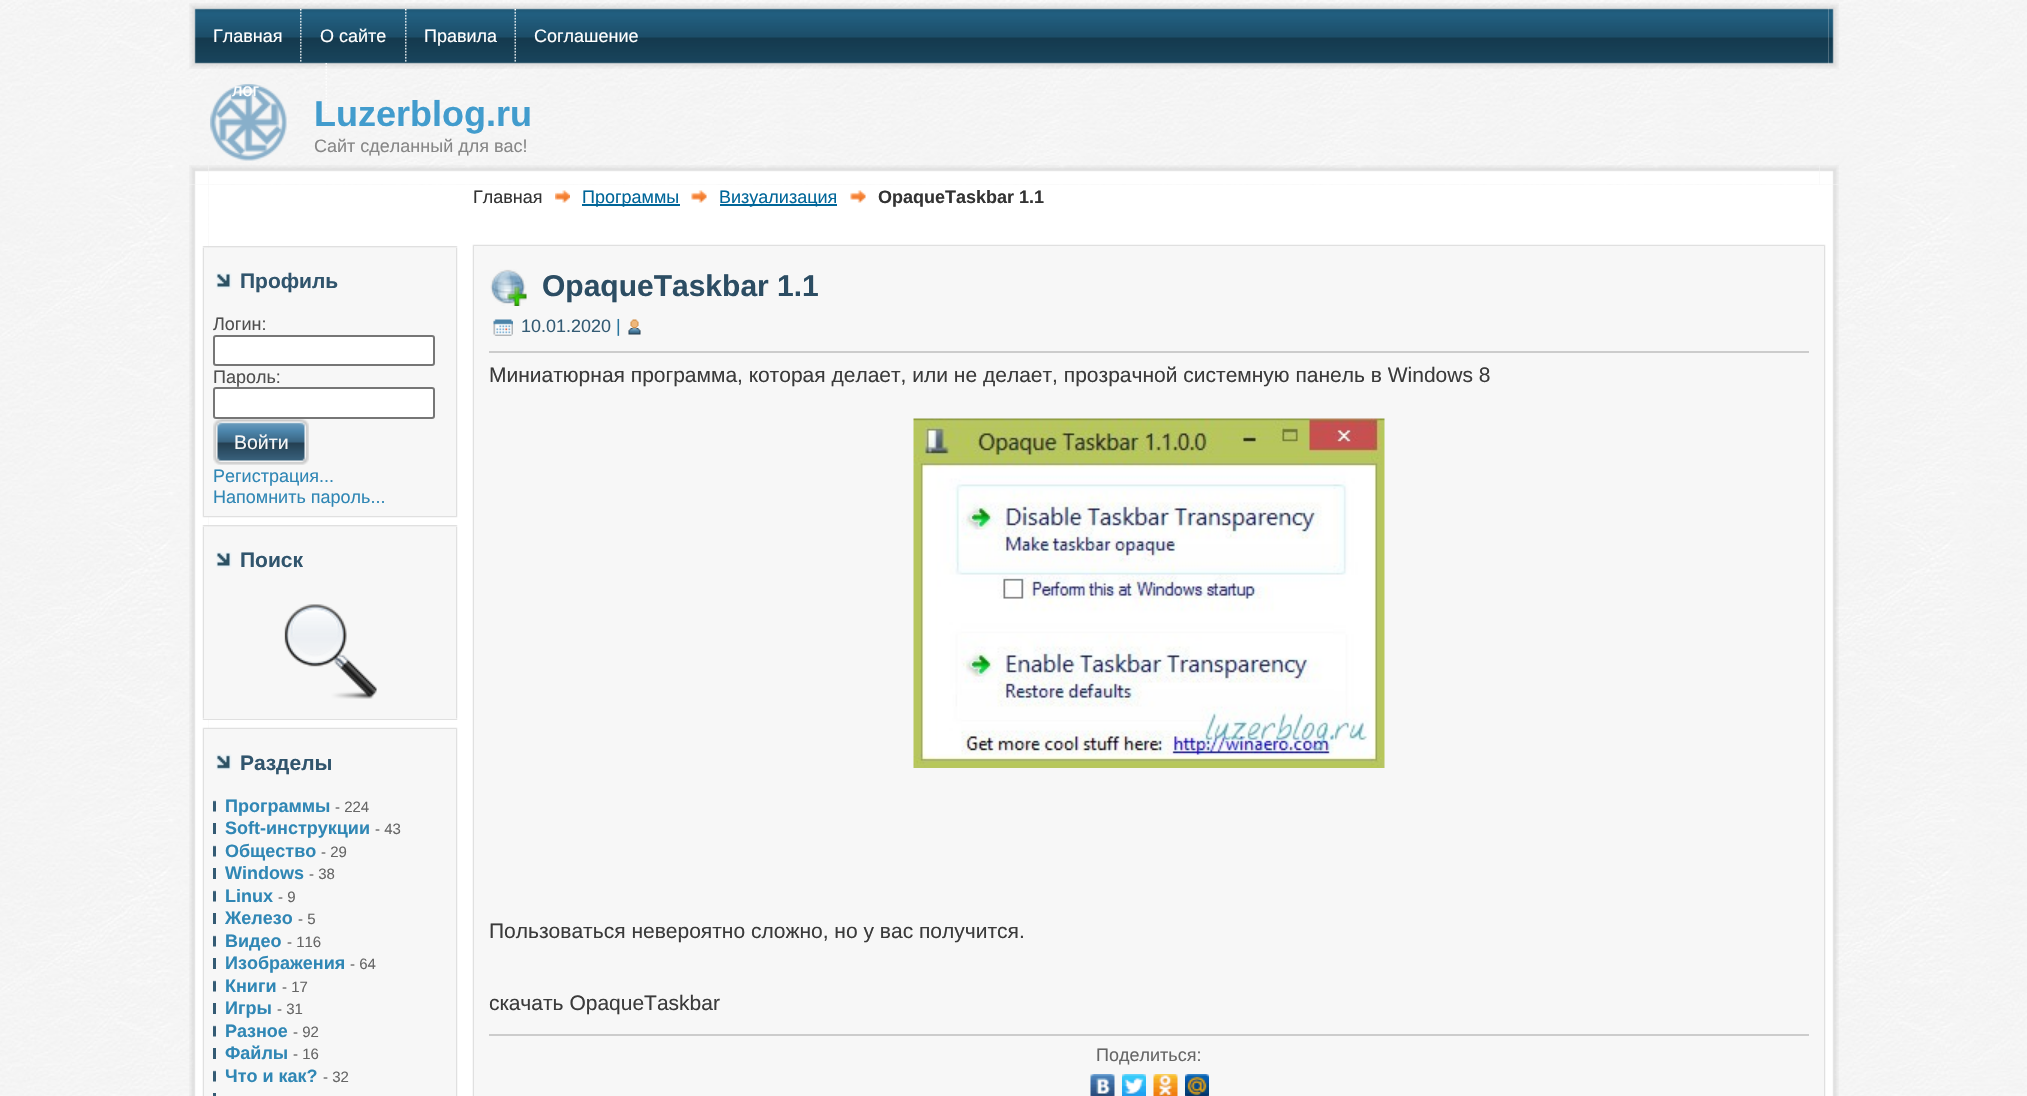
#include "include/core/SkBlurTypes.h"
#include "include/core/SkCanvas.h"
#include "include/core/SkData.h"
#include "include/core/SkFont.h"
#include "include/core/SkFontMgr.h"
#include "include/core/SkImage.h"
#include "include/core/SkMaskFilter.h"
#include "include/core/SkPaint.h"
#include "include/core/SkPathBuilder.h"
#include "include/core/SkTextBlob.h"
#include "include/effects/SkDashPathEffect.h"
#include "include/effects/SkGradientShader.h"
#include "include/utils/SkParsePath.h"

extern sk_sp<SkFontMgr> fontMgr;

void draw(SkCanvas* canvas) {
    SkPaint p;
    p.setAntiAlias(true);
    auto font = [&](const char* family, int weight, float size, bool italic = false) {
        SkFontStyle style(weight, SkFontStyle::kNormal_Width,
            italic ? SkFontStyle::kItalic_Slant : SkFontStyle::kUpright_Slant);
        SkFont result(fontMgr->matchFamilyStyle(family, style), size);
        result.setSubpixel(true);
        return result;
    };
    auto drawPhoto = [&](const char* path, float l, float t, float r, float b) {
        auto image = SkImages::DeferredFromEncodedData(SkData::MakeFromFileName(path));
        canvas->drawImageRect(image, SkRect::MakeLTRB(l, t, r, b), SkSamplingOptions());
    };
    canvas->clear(0xFFFFFFFF);
    drawPhoto("media/1.png", 0, 0, 2027, 1096);
    drawPhoto("media/2.png", 189, 3, 1829, 69);
    drawPhoto("media/3.png", 1828, 3, 1839, 69);
    auto font1 = font("Liberation Sans", 400, 18);
    p.setColor(0xFFFFFFFF);
    canvas->drawString("Главная", 213, 42, font1, p);
    drawPhoto("media/4.png", 300, 9, 302, 62);
    canvas->drawString("О сайте", 320, 42, font1, p);
    drawPhoto("media/4.png", 405, 9, 407, 62);
    canvas->drawString("Правила", 424, 42, font1, p);
    drawPhoto("media/5.png", 514, 9, 516, 62);
    canvas->drawString("Соглашение", 534, 42, font1, p);
    drawPhoto("media/7.png", 210, 84, 287, 161);
    canvas->drawString("лог", 232, 96, font1, p);
    auto font2 = font("Liberation Sans", 700, 36);
    p.setColor(0xFF429CCD);
    canvas->drawString("Luzerblog.ru", 314, 126, font2, p);
    drawPhoto("media/6.png", 325, 63, 327, 116);
    p.setColor(0xFF878787);
    canvas->drawString("Сайт сделанный для вас!", 314, 152, font1, p);
    drawPhoto("media/8.png", 189, 165, 209, 185);
    drawPhoto("media/9.png", 209, 165, 1819, 185);
    drawPhoto("media/10.png", 1819, 165, 1839, 185);
    drawPhoto("media/11.png", 189, 185, 209, 1096);
    p.setColor(0xFFFFFFFF);
    canvas->drawRect(SkRect::MakeLTRB(209, 185, 1820, 1096), p);
    drawPhoto("media/12.png", 1820, 185, 1839, 1096);
    drawPhoto("media/13.png", 202, 246, 204, 248);
    drawPhoto("media/14.png", 204, 246, 456, 248);
    drawPhoto("media/15.png", 456, 246, 458, 248);
    drawPhoto("media/16.png", 202, 247, 204, 516);
    p.setColor(0xFFF7F7F7);
    canvas->drawRect(SkRect::MakeLTRB(204, 248, 456, 516), p);
    drawPhoto("media/17.png", 456, 247, 458, 516);
    drawPhoto("media/18.png", 216, 273, 232, 289);
    auto font3 = font("Liberation Sans", 700, 21);
    p.setColor(0xFF31556D);
    canvas->drawString("Профиль", 240, 288, font3, p);
    p.setColor(0xFF4F4F4F);
    canvas->drawString("Логин:", 213, 330, font1, p);
    p.setColor(0xFFFFFFFF);
    canvas->drawRoundRect(SkRect::MakeLTRB(214, 336, 434, 365), 2, 2, p);
    p.setStyle(SkPaint::kStroke_Style);
    p.setStrokeWidth(2);
    p.setColor(0xFF767676);
    canvas->drawRoundRect(SkRect::MakeLTRB(214, 336, 434, 365), 2, 2, p);
    p.setStyle(SkPaint::kFill_Style);
    p.setColor(0xFF4F4F4F);
    canvas->drawString("Пароль:", 213, 383, font1, p);
    p.setColor(0xFFFFFFFF);
    canvas->drawRoundRect(SkRect::MakeLTRB(214, 388, 434, 418), 2, 2, p);
    p.setStyle(SkPaint::kStroke_Style);
    p.setColor(0xFF767676);
    canvas->drawRoundRect(SkRect::MakeLTRB(214, 388, 434, 418), 2, 2, p);
    drawPhoto("media/19.png", 213, 419, 297, 465);
    drawPhoto("media/20.png", 297, 419, 309, 465);
    auto font4 = font("Liberation Sans", 400, 19.5f);
    p.setStyle(SkPaint::kFill_Style);
    p.setColor(0xFFF7F7F7);
    canvas->drawString("Войти", 234, 449, font4, p);
    p.setColor(0xFF3087B5);
    canvas->drawString("Регистрация...", 213, 482, font1, p);
    canvas->drawString("Напомнить пароль...", 213, 503, font1, p);
    drawPhoto("media/21.png", 202, 516, 204, 518);
    drawPhoto("media/22.png", 204, 516, 456, 518);
    drawPhoto("media/23.png", 456, 516, 458, 518);
    drawPhoto("media/13.png", 202, 525, 204, 527);
    drawPhoto("media/14.png", 204, 525, 456, 527);
    drawPhoto("media/15.png", 456, 525, 458, 527);
    drawPhoto("media/27.png", 202, 718, 204, 720);
    drawPhoto("media/24.png", 202, 526, 204, 719);
    p.setColor(0xFFF7F7F7);
    canvas->drawRect(SkRect::MakeLTRB(204, 527, 456, 719), p);
    drawPhoto("media/29.png", 456, 718, 458, 720);
    drawPhoto("media/25.png", 456, 526, 458, 719);
    drawPhoto("media/18.png", 216, 552, 232, 568);
    p.setColor(0xFF31556D);
    canvas->drawString("Поиск", 240, 567, font3, p);
    drawPhoto("media/26.png", 284, 604, 377, 699);
    drawPhoto("media/28.png", 204, 719, 456, 720);
    drawPhoto("media/30.png", 202, 727, 204, 729);
    drawPhoto("media/31.png", 204, 727, 456, 729);
    drawPhoto("media/32.png", 456, 727, 458, 729);
    drawPhoto("media/33.png", 202, 729, 204, 1096);
    p.setColor(0xFFF7F7F7);
    canvas->drawRect(SkRect::MakeLTRB(204, 729, 456, 1096), p);
    drawPhoto("media/34.png", 456, 729, 458, 1096);
    drawPhoto("media/35.png", 216, 754, 232, 770);
    p.setColor(0xFF31556D);
    canvas->drawString("Разделы", 240, 770, font3, p);
    drawPhoto("media/36.png", 213, 800, 216, 812);
    auto font5 = font("Liberation Sans", 700, 18);
    p.setColor(0xFF3087B5);
    canvas->drawString("Программы", 225, 812, font5, p);
    auto font6 = font("Liberation Sans", 400, 15);
    p.setColor(0xFF666666);
    canvas->drawString("- 224", 335, 812, font6, p);
    p.setColor(0xFF345B74);
    canvas->drawRect(SkRect::MakeLTRB(213, 823, 216, 834), p);
    p.setColor(0xFF3087B5);
    canvas->drawString("Soft-инструкции", 225, 834, font5, p);
    p.setColor(0xFF666666);
    canvas->drawString("- 43", 375, 834, font6, p);
    drawPhoto("media/36.png", 213, 845, 216, 857);
    p.setColor(0xFF3087B5);
    canvas->drawString("Общество", 225, 857, font5, p);
    p.setColor(0xFF666666);
    canvas->drawString("- 29", 321, 857, font6, p);
    p.setColor(0xFF345B74);
    canvas->drawRect(SkRect::MakeLTRB(213, 868, 216, 879), p);
    p.setColor(0xFF3087B5);
    canvas->drawString("Windows", 225, 879, font5, p);
    p.setColor(0xFF666666);
    canvas->drawString("- 38", 309, 879, font6, p);
    drawPhoto("media/36.png", 213, 890, 216, 902);
    p.setColor(0xFF3087B5);
    canvas->drawString("Linux", 225, 902, font5, p);
    p.setColor(0xFF666666);
    canvas->drawString("- 9", 278, 902, font6, p);
    p.setColor(0xFF345B74);
    canvas->drawRect(SkRect::MakeLTRB(213, 913, 216, 924), p);
    p.setColor(0xFF3087B5);
    canvas->drawString("Железо", 225, 924, font5, p);
    p.setColor(0xFF666666);
    canvas->drawString("- 5", 298, 924, font6, p);
    drawPhoto("media/36.png", 213, 935, 216, 947);
    p.setColor(0xFF3087B5);
    canvas->drawString("Видео", 225, 947, font5, p);
    p.setColor(0xFF666666);
    canvas->drawString("- 116", 287, 947, font6, p);
    p.setColor(0xFF345B74);
    canvas->drawRect(SkRect::MakeLTRB(213, 958, 216, 969), p);
    p.setColor(0xFF3087B5);
    canvas->drawString("Изображения", 225, 969, font5, p);
    p.setColor(0xFF666666);
    canvas->drawString("- 64", 350, 969, font6, p);
    drawPhoto("media/36.png", 213, 980, 216, 992);
    p.setColor(0xFF3087B5);
    canvas->drawString("Книги", 225, 992, font5, p);
    p.setColor(0xFF666666);
    canvas->drawString("- 17", 282, 992, font6, p);
    p.setColor(0xFF345B74);
    canvas->drawRect(SkRect::MakeLTRB(213, 1003, 216, 1014), p);
    p.setColor(0xFF3087B5);
    canvas->drawString("Игры", 225, 1014, font5, p);
    p.setColor(0xFF666666);
    canvas->drawString("- 31", 277, 1014, font6, p);
    drawPhoto("media/36.png", 213, 1025, 216, 1037);
    p.setColor(0xFF3087B5);
    canvas->drawString("Разное", 225, 1037, font5, p);
    p.setColor(0xFF666666);
    canvas->drawString("- 92", 293, 1037, font6, p);
    p.setColor(0xFF345B74);
    canvas->drawRect(SkRect::MakeLTRB(213, 1048, 216, 1059), p);
    p.setColor(0xFF3087B5);
    canvas->drawString("Файлы", 225, 1059, font5, p);
    p.setColor(0xFF666666);
    canvas->drawString("- 16", 293, 1059, font6, p);
    drawPhoto("media/36.png", 213, 1070, 216, 1082);
    p.setColor(0xFF3087B5);
    canvas->drawString("Что и как?", 225, 1082, font5, p);
    p.setColor(0xFF666666);
    canvas->drawString("- 32", 323, 1082, font6, p);
    p.setColor(0xFF345B74);
    canvas->drawRect(SkRect::MakeLTRB(213, 1093, 216, 1096), p);
    p.setColor(0xFF333333);
    canvas->drawString("Главная", 473, 203, font1, p);
    drawPhoto("media/37.png", 555, 190, 570, 203);
    p.setColor(0xFF006699);
    canvas->drawRect(SkRect::MakeLTRB(582, 204, 680, 206), p);
    canvas->drawString("Программы", 582, 203, font1, p);
    drawPhoto("media/38.png", 691, 190, 707, 203);
    canvas->drawRect(SkRect::MakeLTRB(720, 204, 837, 206), p);
    canvas->drawString("Визуализация", 719, 203, font1, p);
    drawPhoto("media/39.png", 850, 190, 866, 203);
    p.setColor(0xFF333333);
    canvas->drawString("OpaqueTaskbar 1.1", 878, 203, font5, p);
    drawPhoto("media/30.png", 472, 244, 474, 246);
    drawPhoto("media/40.png", 474, 244, 1824, 246);
    drawPhoto("media/32.png", 1824, 244, 1826, 246);
    drawPhoto("media/41.png", 472, 246, 474, 1096);
    p.setColor(0xFFF7F7F7);
    canvas->drawRect(SkRect::MakeLTRB(474, 246, 1824, 1096), p);
    drawPhoto("media/42.png", 1824, 246, 1826, 1096);
    drawPhoto("media/43.png", 490, 269, 527, 306);
    auto font7 = font("Liberation Sans", 700, 30);
    p.setColor(0xFF2C4D63);
    canvas->drawString("OpaqueTaskbar 1.1", 542, 296, font7, p);
    drawPhoto("media/44.png", 493, 319, 513, 336);
    p.setColor(0xFF345B74);
    canvas->drawString("10.01.2020", 521, 332, font1, p);
    p.setColor(0xFF2A759D);
    canvas->drawString("|", 616, 332, font1, p);
    drawPhoto("media/45.png", 628, 319, 641, 335);
    p.setColor(0xFFCCCCCC);
    canvas->drawRect(SkRect::MakeLTRB(489, 351, 1809, 353), p);
    auto font8 = font("Liberation Sans", 400, 21);
    p.setColor(0xFF3B3B3B);
    canvas->drawString("Миниатюрная программа, которая делает, или не делает, прозрачной системную панель в Windows 8", 489, 382, font8, p);
    drawPhoto("media/46.png", 913, 418, 1385, 768);
    canvas->drawString("Пользоваться невероятно сложно, но у вас получится.", 489, 938, font8, p);
    canvas->drawString("скачать OpaqueTaskbar", 489, 1010, font8, p);
    p.setColor(0xFFCCCCCC);
    canvas->drawRect(SkRect::MakeLTRB(489, 1034, 1809, 1036), p);
    p.setColor(0xFF666666);
    canvas->drawString("Поделиться:", 1096, 1061, font1, p);
    drawPhoto("media/47.png", 1090, 1074, 1115, 1096);
    drawPhoto("media/48.png", 1122, 1074, 1146, 1096);
    drawPhoto("media/49.png", 1153, 1074, 1178, 1096);
    drawPhoto("media/50.png", 1185, 1074, 1209, 1096);
}
